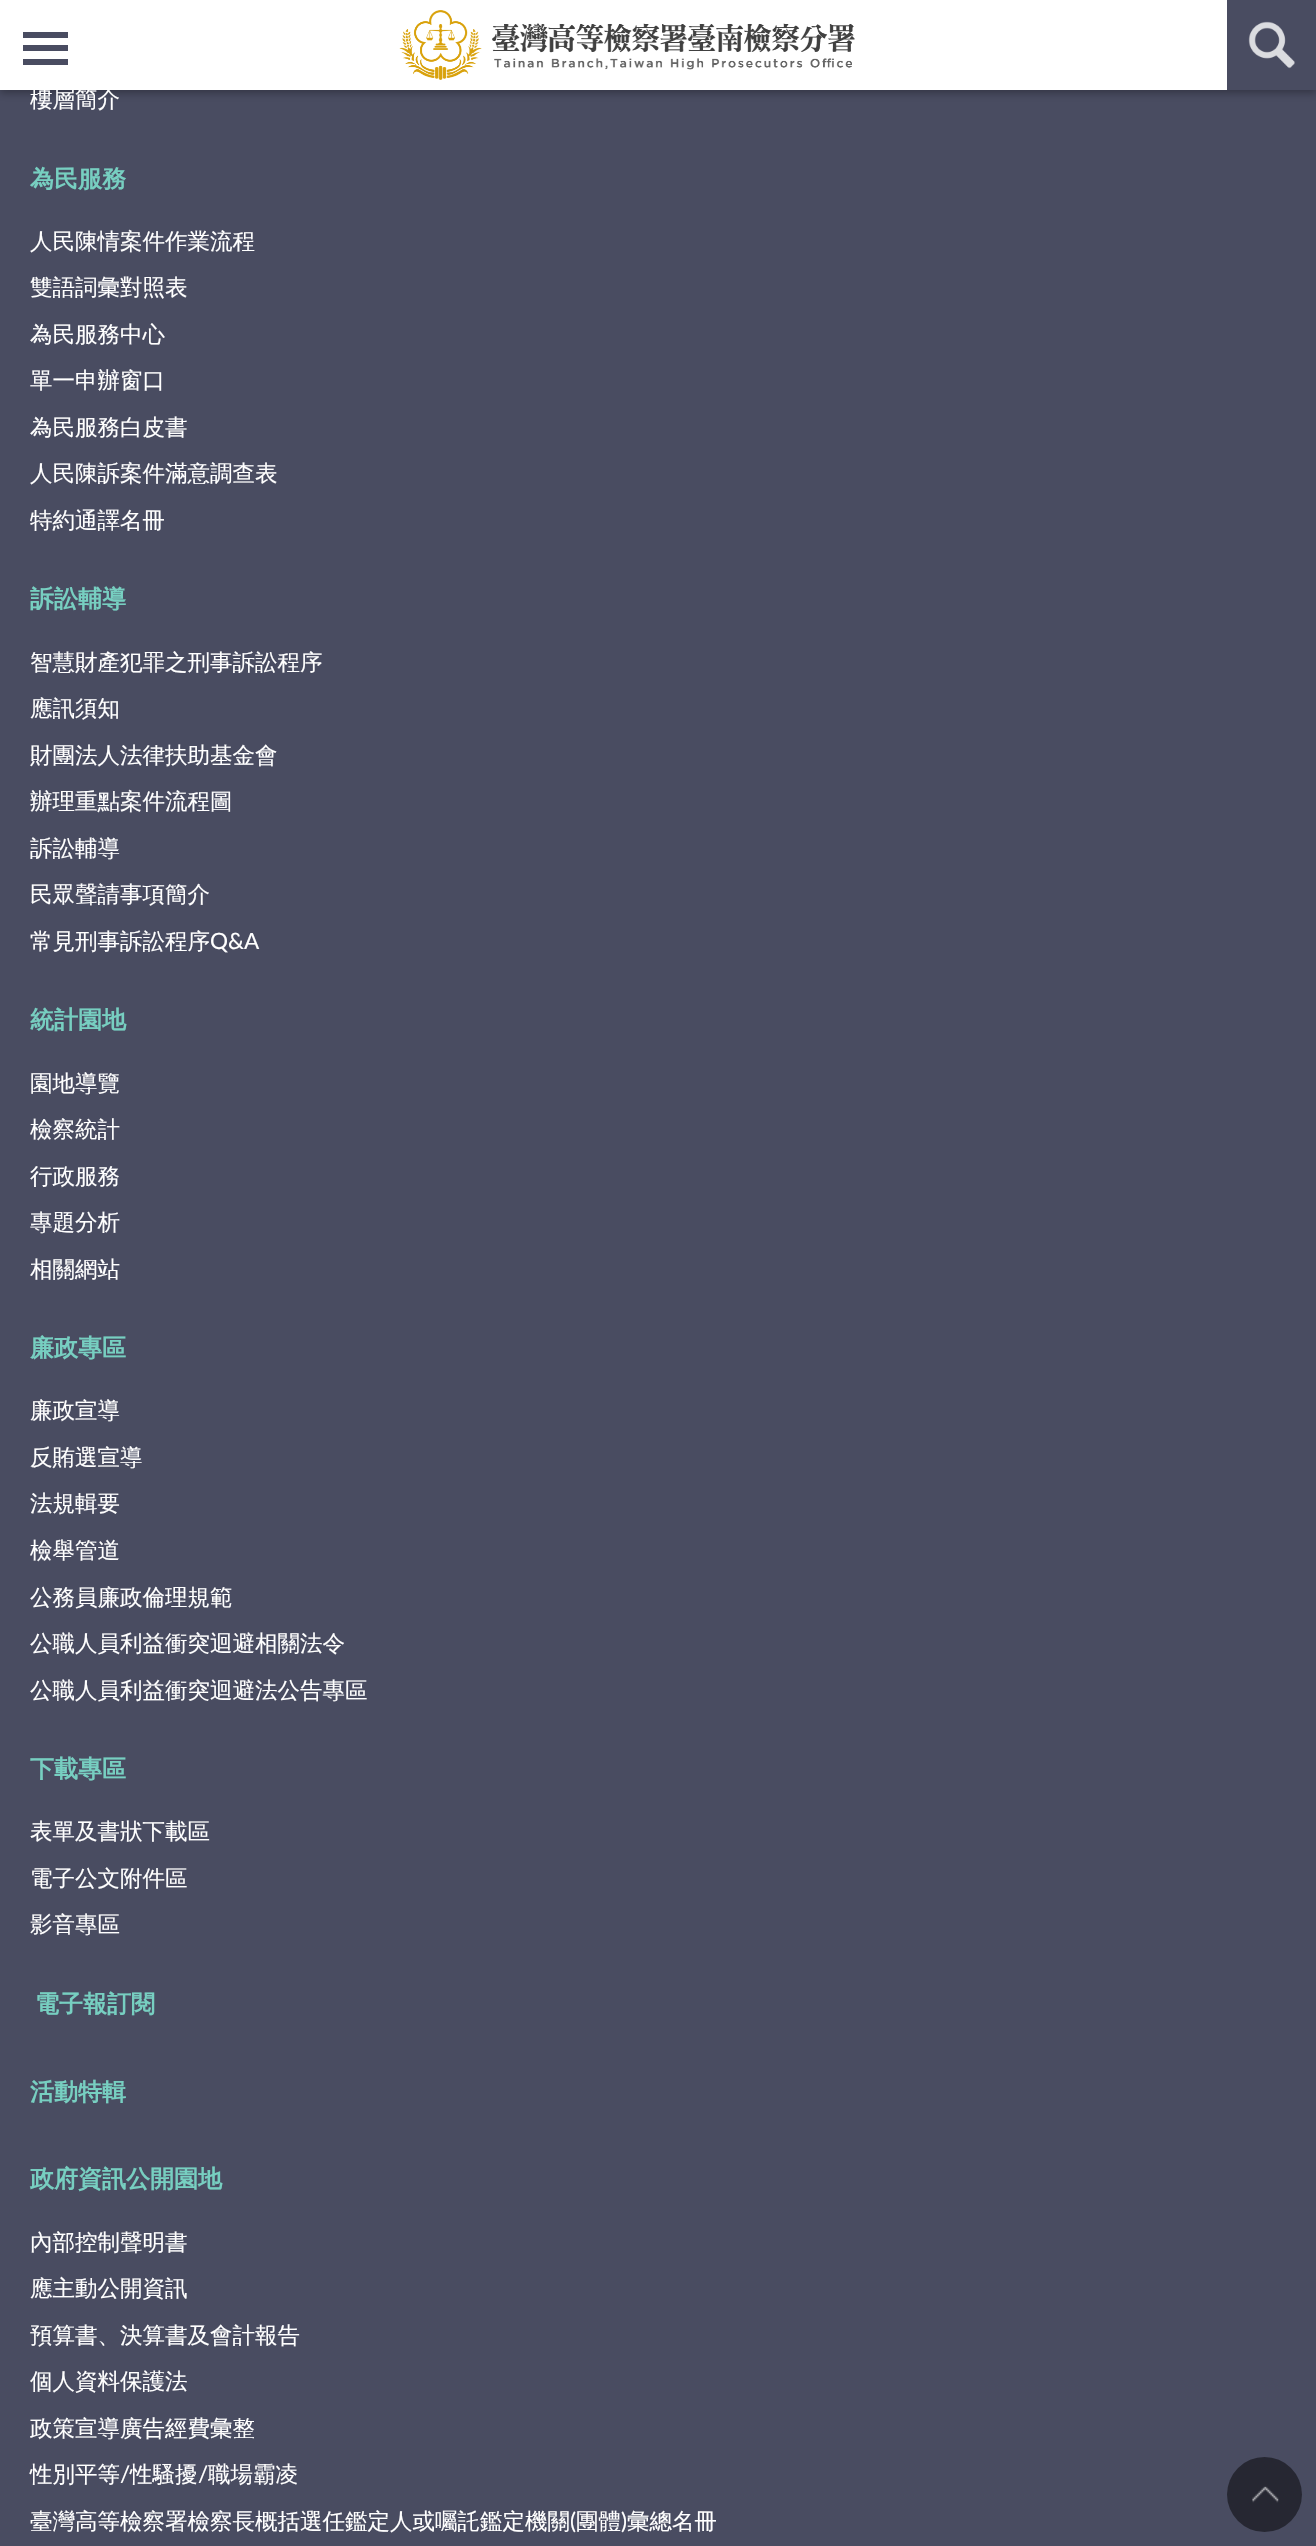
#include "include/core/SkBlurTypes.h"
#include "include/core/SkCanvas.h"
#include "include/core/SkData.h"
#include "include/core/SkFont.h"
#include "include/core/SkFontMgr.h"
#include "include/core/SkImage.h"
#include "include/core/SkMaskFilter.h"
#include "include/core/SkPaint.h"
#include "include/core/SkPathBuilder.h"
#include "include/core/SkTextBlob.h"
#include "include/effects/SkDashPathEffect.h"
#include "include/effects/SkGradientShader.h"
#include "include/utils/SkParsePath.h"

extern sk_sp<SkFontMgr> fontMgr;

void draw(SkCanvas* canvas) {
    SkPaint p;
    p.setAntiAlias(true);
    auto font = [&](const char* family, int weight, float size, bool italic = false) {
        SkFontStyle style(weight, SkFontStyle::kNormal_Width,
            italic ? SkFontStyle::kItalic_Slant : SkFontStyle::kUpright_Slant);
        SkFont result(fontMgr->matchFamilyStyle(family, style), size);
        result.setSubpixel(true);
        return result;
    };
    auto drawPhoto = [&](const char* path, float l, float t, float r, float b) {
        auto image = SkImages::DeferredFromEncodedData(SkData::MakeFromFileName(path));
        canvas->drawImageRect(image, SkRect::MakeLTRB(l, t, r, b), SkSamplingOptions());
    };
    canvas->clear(0xFF494C61);
    p.setColor(0x4D000000);
    p.setMaskFilter(SkMaskFilter::MakeBlur(kNormal_SkBlurStyle, 4));
    canvas->drawRect(SkRect::MakeLTRB(0, 3, 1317, 93), p);
    p.setMaskFilter(nullptr);
    {
        const struct { float l, t, r, b; SkColor color; } items[] = {
            {0, 0, 1227, 90, 0xFFFFFFFF},
            {23, 32, 68, 38, 0xFF494C61},
            {23, 45, 68, 51, 0xFF494C61},
            {23, 59, 68, 65, 0xFF494C61},
        };
        for (auto [l, t, r, b, color] : items) {
            p.setColor(color);
            canvas->drawRect(SkRect::MakeLTRB(l, t, r, b), p);
        }
    }
    drawPhoto("media/1.png", 399, 10, 855, 80);
    canvas->drawRect(SkRect::MakeLTRB(1227, 0, 1316, 90), p);
    drawPhoto("media/2.png", 1248, 21, 1295, 69);
    auto font1 = font("WenQuanYi Zen Hei", 500, 22.5f);
    p.setColor(0xFFFFFFFF);
    canvas->drawString("樓層簡介", 30, 107, font1, p);
    auto font2 = font("WenQuanYi Zen Hei", 700, 24);
    p.setColor(0xFF77CFC1);
    canvas->drawString("為民服務", 30, 187, font2, p);
    p.setColor(0xFFFFFFFF);
    {
        const struct { const char* s; float x, y; } items[] = {
            {"人民陳情案件作業流程", 30, 249},
            {"雙語詞彙對照表", 30, 295},
            {"為民服務中心", 30, 342},
            {"單一申辦窗口", 30, 388},
            {"為民服務白皮書", 30, 435},
            {"人民陳訴案件滿意調查表", 30, 481},
            {"特約通譯名冊", 30, 528},
        };
        for (auto [s, x, y] : items) {
            canvas->drawString(s, x, y, font1, p);
        }
    }
    p.setColor(0xFF77CFC1);
    canvas->drawString("訴訟輔導", 30, 607, font2, p);
    p.setColor(0xFFFFFFFF);
    {
        const struct { const char* s; float x, y; } items[] = {
            {"智慧財產犯罪之刑事訴訟程序", 30, 670},
            {"應訊須知", 30, 716},
            {"財團法人法律扶助基金會", 30, 763},
            {"辦理重點案件流程圖", 30, 809},
            {"訴訟輔導", 30, 856},
            {"民眾聲請事項簡介", 30, 902},
            {"常見刑事訴訟程序", 30, 949},
        };
        for (auto [s, x, y] : items) {
            canvas->drawString(s, x, y, font1, p);
        }
    }
    auto font3 = font("Lato", 400, 22.5f);
    canvas->drawString("Q&A", 210, 949, font3, p);
    p.setColor(0xFF77CFC1);
    canvas->drawString("統計園地", 30, 1028, font2, p);
    p.setColor(0xFFFFFFFF);
    {
        const struct { const char* s; float x, y; } items[] = {
            {"園地導覽", 30, 1091},
            {"檢察統計", 30, 1137},
            {"行政服務", 30, 1184},
            {"專題分析", 30, 1230},
            {"相關網站", 30, 1277},
        };
        for (auto [s, x, y] : items) {
            canvas->drawString(s, x, y, font1, p);
        }
    }
    p.setColor(0xFF77CFC1);
    canvas->drawString("廉政專區", 30, 1356, font2, p);
    p.setColor(0xFFFFFFFF);
    {
        const struct { const char* s; float x, y; } items[] = {
            {"廉政宣導", 30, 1418},
            {"反賄選宣導", 30, 1465},
            {"法規輯要", 30, 1511},
            {"檢舉管道", 30, 1558},
            {"公務員廉政倫理規範", 30, 1605},
            {"公職人員利益衝突迴避相關法令", 30, 1651},
            {"公職人員利益衝突迴避法公告專區", 30, 1698},
        };
        for (auto [s, x, y] : items) {
            canvas->drawString(s, x, y, font1, p);
        }
    }
    p.setColor(0xFF77CFC1);
    canvas->drawString("下載專區", 30, 1777, font2, p);
    p.setColor(0xFFFFFFFF);
    {
        const struct { const char* s; float x, y; } items[] = {
            {"表單及書狀下載區", 30, 1839},
            {"電子公文附件區", 30, 1886},
            {"影音專區", 30, 1932},
        };
        for (auto [s, x, y] : items) {
            canvas->drawString(s, x, y, font1, p);
        }
    }
    p.setColor(0xFF77CFC1);
    {
        const struct { const char* s; float x, y; } items[] = {
            {"電子報訂閱", 35, 2012},
            {"活動特輯", 30, 2100},
            {"政府資訊公開園地", 30, 2187},
        };
        for (auto [s, x, y] : items) {
            canvas->drawString(s, x, y, font2, p);
        }
    }
    p.setColor(0xFFFFFFFF);
    {
        const struct { const char* s; float x, y; } items[] = {
            {"內部控制聲明書", 30, 2250},
            {"應主動公開資訊", 30, 2296},
            {"預算書、決算書及會計報告", 30, 2343},
            {"個人資料保護法", 30, 2389},
            {"政策宣導廣告經費彙整", 30, 2436},
            {"性別平等", 30, 2482},
        };
        for (auto [s, x, y] : items) {
            canvas->drawString(s, x, y, font1, p);
        }
    }
    canvas->drawString("/", 120, 2482, font3, p);
    canvas->drawString("性騷擾", 130, 2482, font1, p);
    canvas->drawString("/", 198, 2482, font3, p);
    canvas->drawString("職場霸凌", 208, 2482, font1, p);
    canvas->drawString("臺灣高等檢察署檢察長概括選任鑑定人或囑託鑑定機關", 30, 2529, font1, p);
    canvas->drawString("(", 570, 2529, font3, p);
    canvas->drawString("團體", 576, 2529, font1, p);
    canvas->drawString(")", 621, 2529, font3, p);
    canvas->drawString("彙總名冊", 627, 2529, font1, p);
    p.setColor(0xFF262732);
    canvas->drawCircle(1264.5f, 2494.5f, 37.5f, p);
    drawPhoto("media/3.png", 1252, 2486, 1279, 2503);
}
